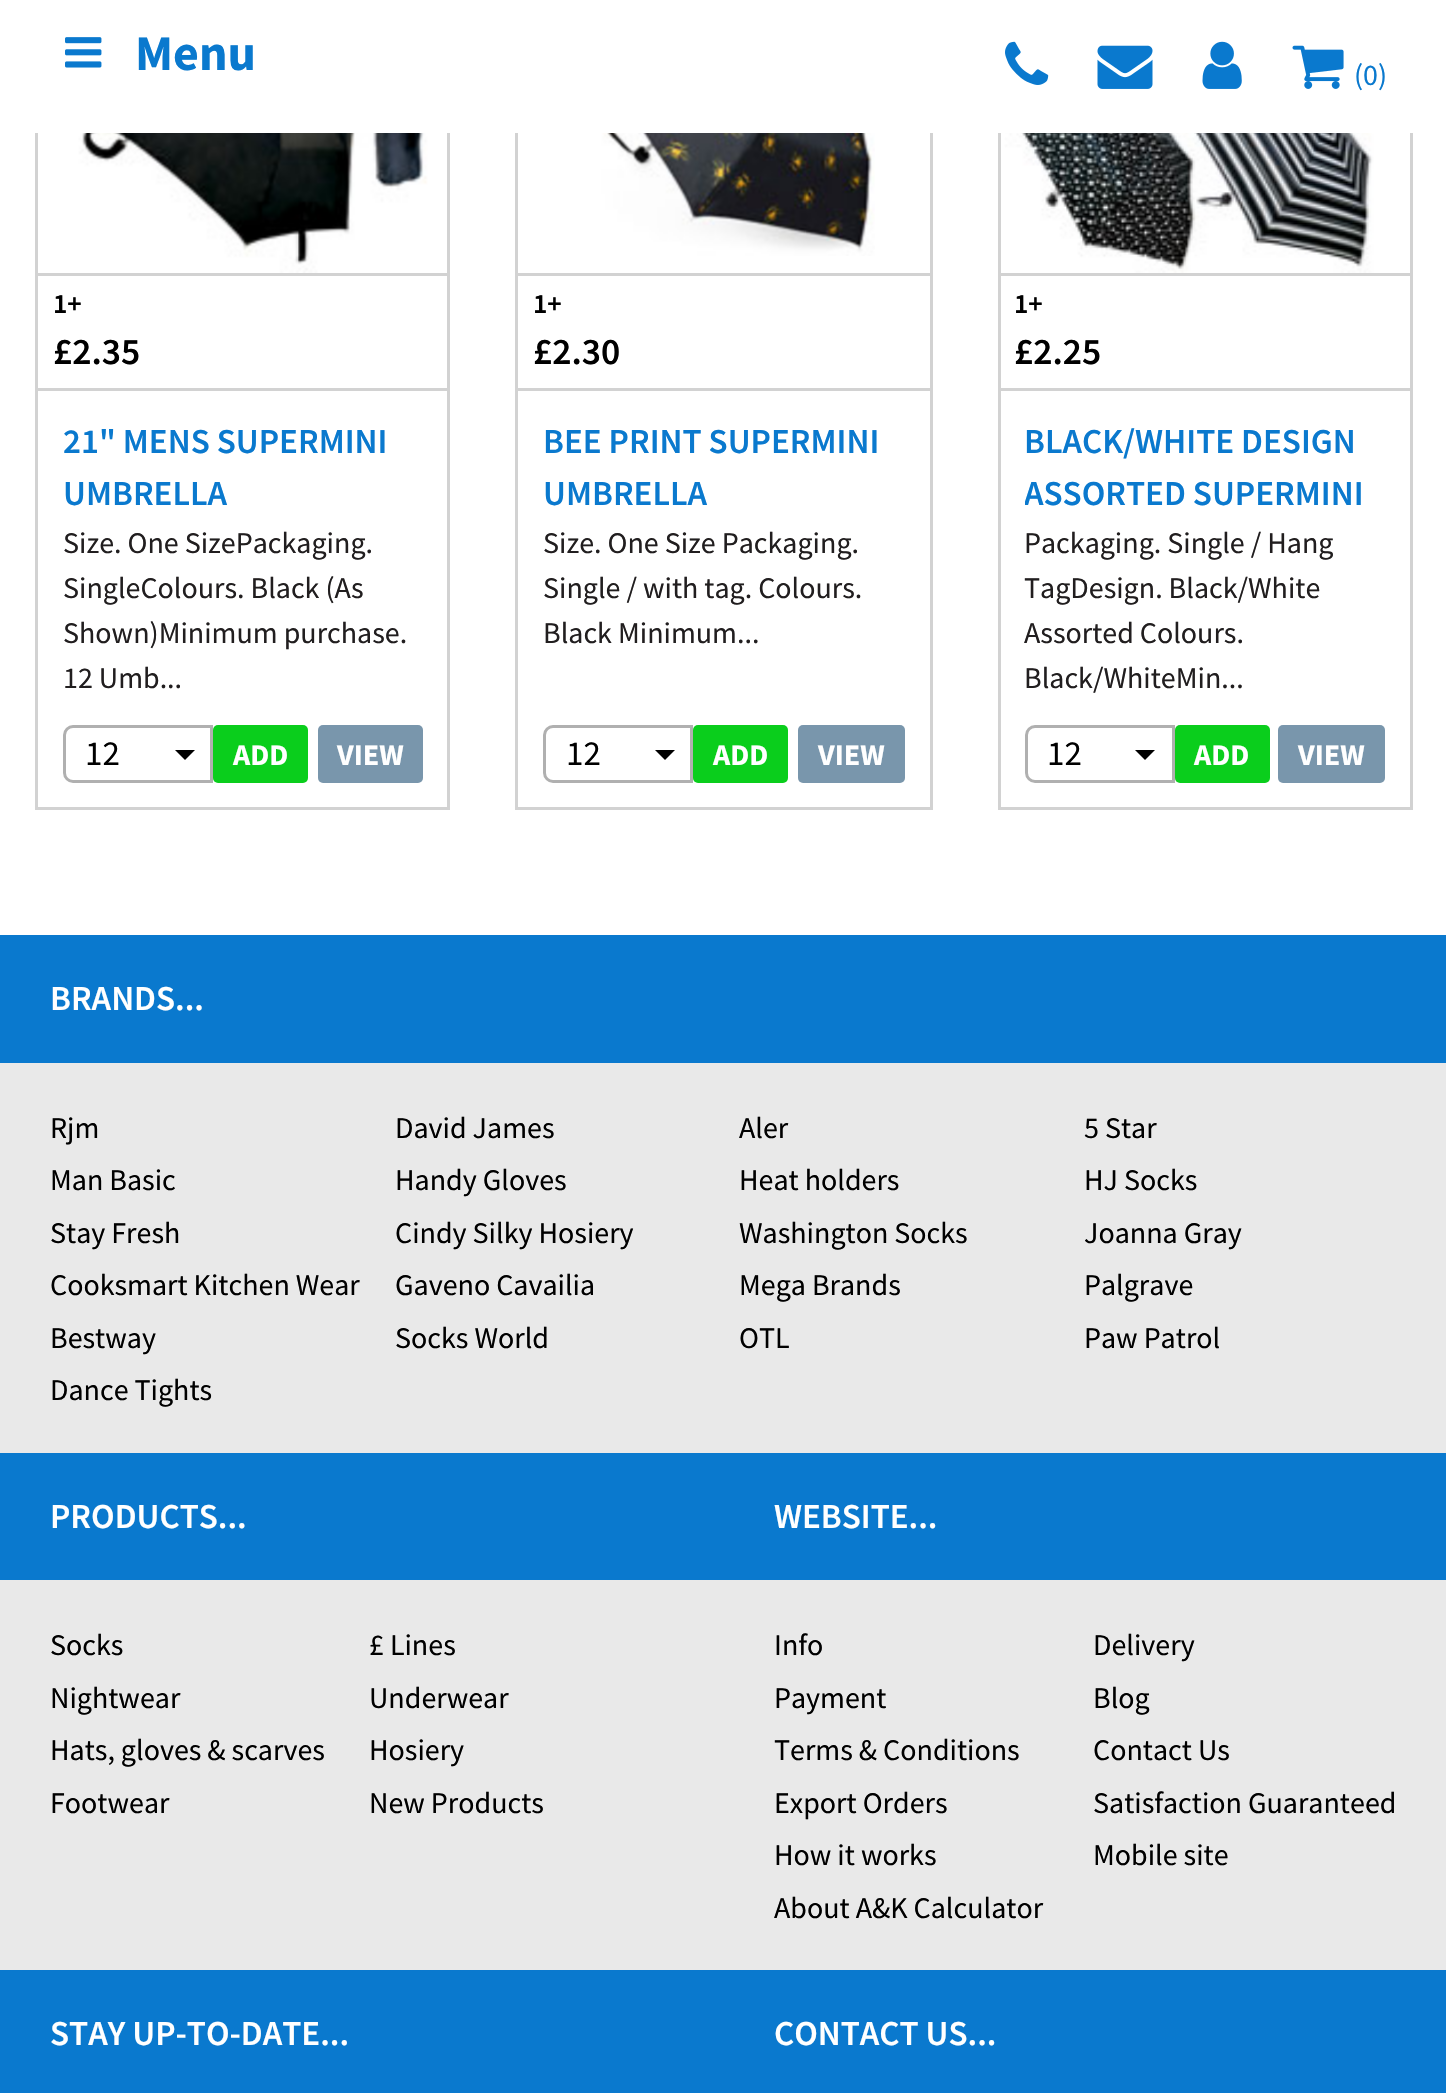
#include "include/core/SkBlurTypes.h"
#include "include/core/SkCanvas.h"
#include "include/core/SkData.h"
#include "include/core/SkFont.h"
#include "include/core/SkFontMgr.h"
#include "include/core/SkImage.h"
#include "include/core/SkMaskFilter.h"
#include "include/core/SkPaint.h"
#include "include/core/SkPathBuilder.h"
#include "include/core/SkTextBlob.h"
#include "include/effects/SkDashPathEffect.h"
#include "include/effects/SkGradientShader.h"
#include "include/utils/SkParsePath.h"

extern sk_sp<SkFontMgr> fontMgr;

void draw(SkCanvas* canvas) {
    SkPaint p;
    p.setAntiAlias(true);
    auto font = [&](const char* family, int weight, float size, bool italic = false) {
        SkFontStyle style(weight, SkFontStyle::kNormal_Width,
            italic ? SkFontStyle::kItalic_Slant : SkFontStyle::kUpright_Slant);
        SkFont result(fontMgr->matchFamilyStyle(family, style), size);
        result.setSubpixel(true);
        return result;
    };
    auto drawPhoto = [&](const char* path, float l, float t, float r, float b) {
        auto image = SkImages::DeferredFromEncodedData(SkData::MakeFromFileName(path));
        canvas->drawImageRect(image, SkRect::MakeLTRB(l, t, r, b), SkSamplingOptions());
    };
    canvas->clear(0xFFFFFFFF);
    p.setStyle(SkPaint::kStroke_Style);
    p.setStrokeWidth(3);
    p.setColor(0xFFD2D2D2);
    canvas->drawRect(SkRect::MakeLTRB(36.5f, -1.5f, 448.5f, 808.5f), p);
    canvas->drawRect(SkRect::MakeLTRB(516.5f, -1.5f, 931.5f, 808.5f), p);
    canvas->drawRect(SkRect::MakeLTRB(999.5f, -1.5f, 1411.5f, 808.5f), p);
    p.setStyle(SkPaint::kFill_Style);
    p.setColor(0xFFFFFFFF);
    canvas->drawRect(SkRect::MakeLTRB(35, 0, 1413, 133), p);
    drawPhoto("media/1.png", 65, 37, 102, 68);
    auto font1 = font("Source Sans Pro", 700, 50);
    p.setColor(0xFF0A79CE);
    canvas->drawString("Menu", 135, 70, font1, p);
    drawPhoto("media/2.png", 1005, 41, 1049, 85);
    drawPhoto("media/3.png", 1097, 45, 1153, 89);
    drawPhoto("media/4.png", 1202, 41, 1242, 89);
    drawPhoto("media/5.png", 1292, 45, 1344, 89);
    auto font2 = font("Source Sans Pro", 400, 30);
    canvas->drawString("(0)", 1354, 85, font2, p);
    drawPhoto("media/6.png", 61, 133, 428, 273);
    p.setColor(0xFFD2D2D2);
    canvas->drawRect(SkRect::MakeLTRB(38, 273, 448, 276), p);
    canvas->drawRect(SkRect::MakeLTRB(38, 388, 448, 391), p);
    auto font3 = font("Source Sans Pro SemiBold", 600, 28);
    p.setColor(0xFF000000);
    canvas->drawString("1+", 53, 313, font3, p);
    auto font4 = font("Source Sans Pro SemiBold", 600, 37.5f);
    canvas->drawString("£2.35", 53, 364, font4, p);
    auto font5 = font("Source Sans Pro SemiBold", 600, 35);
    p.setColor(0xFF0A79CE);
    canvas->drawString("21\" MENS SUPERMINI", 63, 453, font5, p);
    canvas->drawString("UMBRELLA", 63, 505, font5, p);
    p.setColor(0xFF211E1F);
    {
        const struct { const char* s; float x, y; } items[] = {
            {"Size. One SizePackaging.", 63, 553},
            {"SingleColours. Black (As", 63, 598},
            {"Shown)Minimum purchase.", 63, 643},
            {"12 Umb...", 63, 688},
        };
        for (auto [s, x, y] : items) {
            canvas->drawString(s, x, y, font2, p);
        }
    }
    p.setStyle(SkPaint::kStroke_Style);
    p.setColor(0xFFB0B0B0);
    canvas->drawPath(SkPathBuilder().moveTo(73, 726.5f).lineTo(211.5f, 726.5f).lineTo(211.5f, 781.5f).lineTo(73, 781.5f).cubicTo(68.5f, 781.5f, 64.5f, 777.5f, 64.5f, 773).lineTo(64.5f, 735).cubicTo(64.5f, 730.5f, 68.5f, 726.5f, 73, 726.5f).close().detach(), p);
    auto font6 = font("Source Sans Pro", 400, 35);
    p.setStyle(SkPaint::kFill_Style);
    p.setColor(0xFF000000);
    canvas->drawString("12", 85, 765, font6, p);
    canvas->drawPath(SkPathBuilder().moveTo(175, 750).lineTo(195, 750).lineTo(185, 760).close().detach(), p);
    p.setColor(0xFF0ACE1C);
    canvas->drawRoundRect(SkRect::MakeLTRB(213, 725, 308, 783), 5, 5, p);
    auto font7 = font("Source Sans Pro", 700, 30);
    p.setColor(0xFFFFFFFF);
    canvas->drawString("ADD", 233, 765, font7, p);
    p.setColor(0xFF7996AC);
    canvas->drawRoundRect(SkRect::MakeLTRB(318, 725, 423, 783), 5, 5, p);
    p.setColor(0xFFFFFFFF);
    canvas->drawString("VIEW", 337, 765, font7, p);
    drawPhoto("media/7.png", 548, 133, 875, 256);
    p.setColor(0xFFD2D2D2);
    canvas->drawRect(SkRect::MakeLTRB(518, 273, 930, 276), p);
    canvas->drawRect(SkRect::MakeLTRB(518, 388, 930, 391), p);
    p.setColor(0xFF000000);
    canvas->drawString("1+", 533, 313, font3, p);
    canvas->drawString("£2.30", 533, 364, font4, p);
    p.setColor(0xFF0A79CE);
    canvas->drawString("BEE PRINT SUPERMINI", 543, 453, font5, p);
    canvas->drawString("UMBRELLA", 543, 505, font5, p);
    p.setColor(0xFF211E1F);
    {
        const struct { const char* s; float x, y; } items[] = {
            {"Size. One Size Packaging.", 543, 553},
            {"Single / with tag. Colours.", 543, 598},
            {"Black Minimum...", 543, 643},
        };
        for (auto [s, x, y] : items) {
            canvas->drawString(s, x, y, font2, p);
        }
    }
    p.setStyle(SkPaint::kStroke_Style);
    p.setColor(0xFFB0B0B0);
    canvas->drawPath(SkPathBuilder().moveTo(553, 726.5f).lineTo(691.5f, 726.5f).lineTo(691.5f, 781.5f).lineTo(553, 781.5f).cubicTo(548.5f, 781.5f, 544.5f, 777.5f, 544.5f, 773).lineTo(544.5f, 735).cubicTo(544.5f, 730.5f, 548.5f, 726.5f, 553, 726.5f).close().detach(), p);
    p.setStyle(SkPaint::kFill_Style);
    p.setColor(0xFF000000);
    canvas->drawString("12", 566, 765, font6, p);
    canvas->drawPath(SkPathBuilder().moveTo(655, 750).lineTo(675, 750).lineTo(665, 760).close().detach(), p);
    p.setColor(0xFF0ACE1C);
    canvas->drawRoundRect(SkRect::MakeLTRB(693, 725, 788, 783), 5, 5, p);
    p.setColor(0xFFFFFFFF);
    canvas->drawString("ADD", 713, 765, font7, p);
    p.setColor(0xFF7996AC);
    canvas->drawRoundRect(SkRect::MakeLTRB(798, 725, 905, 783), 5, 5, p);
    p.setColor(0xFFFFFFFF);
    canvas->drawString("VIEW", 818, 765, font7, p);
    drawPhoto("media/8.png", 1004, 133, 1394, 273);
    p.setColor(0xFFD2D2D2);
    canvas->drawRect(SkRect::MakeLTRB(1000, 273, 1410, 276), p);
    canvas->drawRect(SkRect::MakeLTRB(1000, 388, 1410, 391), p);
    p.setColor(0xFF000000);
    canvas->drawString("1+", 1014, 313, font3, p);
    canvas->drawString("£2.25", 1014, 364, font4, p);
    p.setColor(0xFF0A79CE);
    canvas->drawString("BLACK/WHITE DESIGN", 1024, 453, font5, p);
    canvas->save();
    canvas->clipRect(SkRect::MakeLTRB(1025, 415, 1385, 520));
    canvas->drawString("ASSORTED SUPERMINI", 1024, 505, font5, p);
    canvas->restore();
    p.setColor(0xFF211E1F);
    {
        const struct { const char* s; float x, y; } items[] = {
            {"Packaging. Single / Hang", 1024, 553},
            {"TagDesign. Black/White", 1024, 598},
            {"Assorted Colours.", 1024, 643},
            {"Black/WhiteMin...", 1024, 688},
        };
        for (auto [s, x, y] : items) {
            canvas->drawString(s, x, y, font2, p);
        }
    }
    p.setStyle(SkPaint::kStroke_Style);
    p.setColor(0xFFB0B0B0);
    canvas->drawPath(SkPathBuilder().moveTo(1035, 726.5f).lineTo(1173.5f, 726.5f).lineTo(1173.5f, 781.5f).lineTo(1035, 781.5f).cubicTo(1030.5f, 781.5f, 1026.5f, 777.5f, 1026.5f, 773).lineTo(1026.5f, 735).cubicTo(1026.5f, 730.5f, 1030.5f, 726.5f, 1035, 726.5f).close().detach(), p);
    p.setStyle(SkPaint::kFill_Style);
    p.setColor(0xFF000000);
    canvas->drawString("12", 1047, 765, font6, p);
    canvas->drawPath(SkPathBuilder().moveTo(1135, 750).lineTo(1155, 750).lineTo(1145, 760).close().detach(), p);
    p.setColor(0xFF0ACE1C);
    canvas->drawRoundRect(SkRect::MakeLTRB(1175, 725, 1270, 783), 5, 5, p);
    p.setColor(0xFFFFFFFF);
    canvas->drawString("ADD", 1194, 765, font7, p);
    p.setColor(0xFF7996AC);
    canvas->drawRoundRect(SkRect::MakeLTRB(1278, 725, 1385, 783), 5, 5, p);
    p.setColor(0xFFFFFFFF);
    canvas->drawString("VIEW", 1298, 765, font7, p);
    p.setColor(0xFFE9E9E9);
    canvas->drawRect(SkRect::MakeLTRB(0, 1063, 1446, 1970), p);
    p.setColor(0xFF0A79CE);
    canvas->drawRect(SkRect::MakeLTRB(0, 935, 1446, 1063), p);
    p.setColor(0xFFFFFFFF);
    canvas->drawString("BRANDS...", 50, 1010, font5, p);
    p.setColor(0xFF000000);
    {
        const struct { const char* s; float x, y; } items[] = {
            {"Rjm", 50, 1138},
            {"David James", 395, 1138},
            {"Aler", 739, 1138},
            {"5 Star", 1084, 1138},
            {"Man Basic", 50, 1190},
            {"Handy Gloves", 395, 1190},
            {"Heat holders", 739, 1190},
            {"HJ Socks", 1084, 1190},
            {"Stay Fresh", 50, 1243},
            {"Cindy Silky Hosiery", 395, 1243},
            {"Washington Socks", 739, 1243},
            {"Joanna Gray", 1084, 1243},
            {"Cooksmart Kitchen Wear", 50, 1295},
            {"Gaveno Cavailia", 395, 1295},
            {"Mega Brands", 739, 1295},
            {"Palgrave", 1084, 1295},
            {"Bestway", 50, 1348},
            {"Socks World", 395, 1348},
            {"OTL", 739, 1348},
            {"Paw Patrol", 1084, 1348},
            {"Dance Tights", 50, 1400},
        };
        for (auto [s, x, y] : items) {
            canvas->drawString(s, x, y, font2, p);
        }
    }
    p.setColor(0xFF0A79CE);
    canvas->drawRect(SkRect::MakeLTRB(0, 1453, 1446, 1580), p);
    p.setColor(0xFFFFFFFF);
    canvas->drawString("PRODUCTS...", 50, 1528, font5, p);
    p.setColor(0xFF000000);
    {
        const struct { const char* s; float x, y; } items[] = {
            {"Socks", 50, 1655},
            {"£ Lines", 369, 1655},
            {"Nightwear", 50, 1708},
            {"Underwear", 369, 1708},
            {"Hats, gloves & scarves", 50, 1760},
            {"Hosiery", 369, 1760},
            {"Footwear", 50, 1813},
            {"New Products", 369, 1813},
        };
        for (auto [s, x, y] : items) {
            canvas->drawString(s, x, y, font2, p);
        }
    }
    p.setColor(0xFFFFFFFF);
    canvas->drawString("WEBSITE...", 774, 1528, font5, p);
    p.setColor(0xFF000000);
    {
        const struct { const char* s; float x, y; } items[] = {
            {"Info", 774, 1655},
            {"Delivery", 1093, 1655},
            {"Payment", 774, 1708},
            {"Blog", 1093, 1708},
            {"Terms & Conditions", 774, 1760},
            {"Contact Us", 1093, 1760},
            {"Export Orders", 774, 1813},
            {"Satisfaction Guaranteed", 1093, 1813},
            {"How it works", 774, 1865},
            {"Mobile site", 1093, 1865},
            {"About A&K Calculator", 774, 1918},
        };
        for (auto [s, x, y] : items) {
            canvas->drawString(s, x, y, font2, p);
        }
    }
    p.setColor(0xFF0A79CE);
    canvas->drawRect(SkRect::MakeLTRB(0, 1970, 1446, 2093), p);
    p.setColor(0xFFFFFFFF);
    canvas->drawString("STAY UP-TO-DATE...", 50, 2045, font5, p);
    canvas->drawString("CONTACT US...", 774, 2045, font5, p);
}
